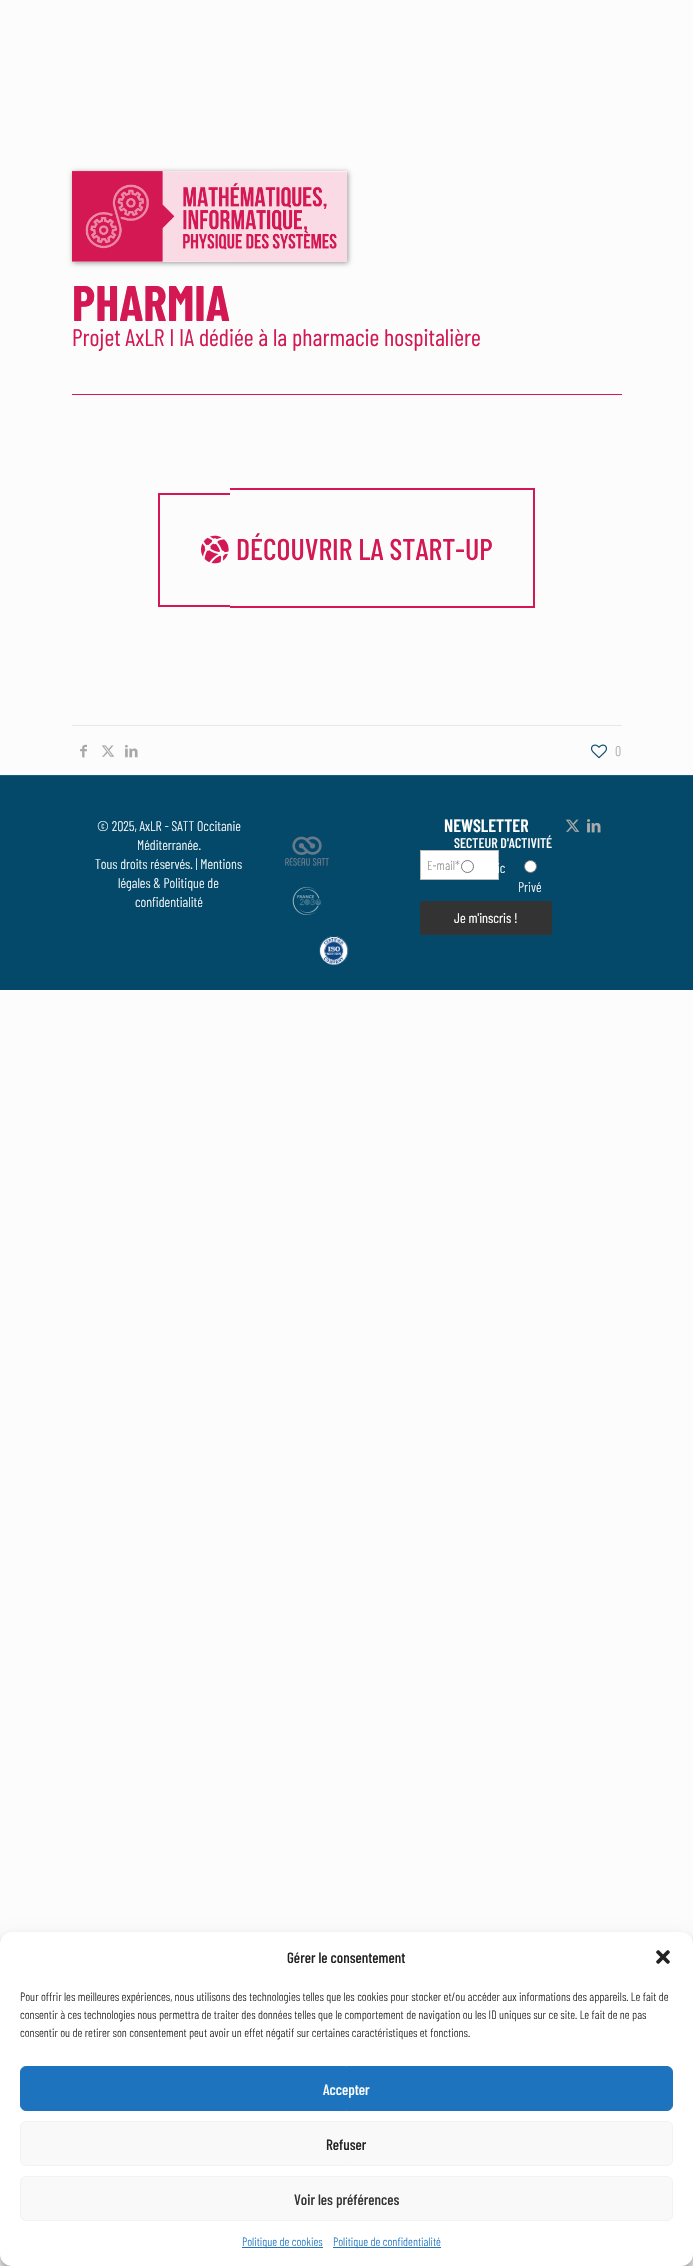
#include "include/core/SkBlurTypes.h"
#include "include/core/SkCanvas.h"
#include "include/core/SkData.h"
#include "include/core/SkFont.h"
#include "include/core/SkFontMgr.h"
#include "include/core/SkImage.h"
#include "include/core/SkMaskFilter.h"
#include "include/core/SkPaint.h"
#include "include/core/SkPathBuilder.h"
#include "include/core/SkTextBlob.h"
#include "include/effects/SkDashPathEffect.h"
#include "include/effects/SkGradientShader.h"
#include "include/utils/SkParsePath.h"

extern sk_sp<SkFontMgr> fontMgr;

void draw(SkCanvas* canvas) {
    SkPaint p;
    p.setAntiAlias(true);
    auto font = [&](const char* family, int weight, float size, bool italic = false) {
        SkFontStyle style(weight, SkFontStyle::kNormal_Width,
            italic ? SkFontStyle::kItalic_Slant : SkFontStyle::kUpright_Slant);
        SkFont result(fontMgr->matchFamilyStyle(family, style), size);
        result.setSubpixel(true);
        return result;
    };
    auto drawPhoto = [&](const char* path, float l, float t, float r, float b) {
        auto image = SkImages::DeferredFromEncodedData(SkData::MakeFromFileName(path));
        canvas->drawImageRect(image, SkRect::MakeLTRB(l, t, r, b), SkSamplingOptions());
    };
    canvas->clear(0xFFFCFCFC);
    p.setColor(0xFFD31853);
    canvas->drawRect(SkRect::MakeLTRB(72, 394, 622, 395), p);
    p.setColor(0xFF999999);
    p.setMaskFilter(SkMaskFilter::MakeBlur(kNormal_SkBlurStyle, 2.5f));
    canvas->drawRect(SkRect::MakeLTRB(73, 172, 348, 263), p);
    p.setMaskFilter(nullptr);
    drawPhoto("media/1.png", 72, 171, 347, 262);
    auto font1 = font("Barlow Condensed", 700, 50);
    p.setColor(0xFFD31853);
    canvas->drawString("PHARMIA", 72, 321, font1, p);
    auto font2 = font("Barlow Condensed", 400, 24);
    canvas->drawString("Projet AxLR I IA dédiée à la pharmacie hospitalière", 72, 346, font2, p);
    {
        const struct { float l, t, r, b; SkColor color; } items[] = {
            {158, 493, 230, 495, 0xFFD31853},
            {158, 605, 230, 607, 0xFFD31853},
            {158, 493, 160, 607, 0xFFD31853},
            {230, 488, 535, 490, 0xFFD31853},
            {533, 488, 535, 608, 0xFFD31853},
            {230, 606, 535, 608, 0xFFD31853},
        };
        for (auto [l, t, r, b, color] : items) {
            p.setColor(color);
            canvas->drawRect(SkRect::MakeLTRB(l, t, r, b), p);
        }
    }
    drawPhoto("media/2.png", 201, 535, 229, 564);
    auto font3 = font("Barlow Condensed", 500, 30);
    canvas->drawString("DÉCOUVRIR LA START-UP", 236, 560, font3, p);
    p.setColor(0xFFE8E8E8);
    canvas->drawRect(SkRect::MakeLTRB(72, 725, 622, 726), p);
    drawPhoto("media/3.png", 80, 744, 87, 758);
    drawPhoto("media/4.png", 101, 745, 115, 757);
    drawPhoto("media/5.png", 125, 744, 138, 758);
    drawPhoto("media/6.png", 591, 744, 607, 759);
    auto font4 = font("Barlow Condensed", 300, 14);
    p.setColor(0xFFA8A8A8);
    canvas->drawString("0", 615, 756, font4, p);
    p.setColor(0xFF044969);
    canvas->drawRect(SkRect::MakeLTRB(0, 776, 693, 990), p);
    p.setColor(0xFF1D5B78);
    canvas->drawRect(SkRect::MakeLTRB(0, 775, 693, 776), p);
    p.setColor(0xFFFFFFFF);
    {
        const struct { const char* s; float x, y; } items[] = {
            {"© 2025, AxLR - SATT Occitanie", 97, 831},
            {"Méditerranée.", 137, 850},
            {"Tous droits réservés. | Mentions", 95, 869},
            {"légales & Politique de", 118, 888},
            {"confidentialité", 135, 907},
        };
        for (auto [s, x, y] : items) {
            canvas->drawString(s, x, y, font4, p);
        }
    }
    drawPhoto("media/7.png", 285, 836, 329, 866);
    drawPhoto("media/8.png", 292, 887, 322, 915);
    drawPhoto("media/9.png", 319, 936, 349, 966);
    auto font5 = font("Barlow Condensed", 600, 18);
    canvas->drawString("NEWSLETTER", 444, 832, font5, p);
    canvas->drawRect(SkRect::MakeLTRB(420.5f, 850.5f, 498.5f, 879.5f), p);
    p.setStyle(SkPaint::kStroke_Style);
    p.setStrokeWidth(1);
    p.setColor(0xFFBBBBBB);
    canvas->drawRect(SkRect::MakeLTRB(420.5f, 850.5f, 498.5f, 879.5f), p);
    auto font6 = font("Barlow Condensed", 300, 13);
    p.setStyle(SkPaint::kFill_Style);
    p.setColor(0xFF929292);
    canvas->drawString("E-mail*", 427, 870, font6, p);
    auto font7 = font("Barlow Condensed", 500, 14);
    p.setColor(0xFFFFFFFF);
    canvas->drawString("SECTEUR D'ACTIVITÉ", 454, 848, font7, p);
    p.setStyle(SkPaint::kStroke_Style);
    p.setColor(0xFF767676);
    canvas->drawCircle(467.5f, 866.5f, 6, p);
    p.setStyle(SkPaint::kFill_Style);
    p.setColor(0xFFFFFFFF);
    canvas->drawString("ic", 497, 873, font4, p);
    canvas->drawCircle(530.5f, 866.5f, 6, p);
    p.setStyle(SkPaint::kStroke_Style);
    p.setColor(0xFF767676);
    canvas->drawCircle(530.5f, 866.5f, 6, p);
    p.setStyle(SkPaint::kFill_Style);
    p.setColor(0xFFFFFFFF);
    canvas->drawString("Privé", 518, 892, font4, p);
    p.setColor(0xFF333333);
    canvas->drawRoundRect(SkRect::MakeLTRB(420, 901, 552, 935), 3, 3, p);
    auto font8 = font("Barlow Condensed", 400, 14);
    p.setColor(0xFFFFFFFF);
    canvas->drawString("Je m'inscris !", 454, 923, font8, p);
    drawPhoto("media/10.png", 565, 819, 580, 832);
    drawPhoto("media/11.png", 587, 819, 601, 833);
    p.setColor(0x3B000000);
    p.setMaskFilter(SkMaskFilter::MakeBlur(kNormal_SkBlurStyle, 3));
    canvas->drawRoundRect(SkRect::MakeLTRB(0, 1938, 693, 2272), 12, 12, p);
    p.setMaskFilter(nullptr);
    p.setColor(0x30000000);
    p.setMaskFilter(SkMaskFilter::MakeBlur(kNormal_SkBlurStyle, 10));
    canvas->drawRoundRect(SkRect::MakeLTRB(0, 1942, 693, 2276), 12, 12, p);
    p.setMaskFilter(nullptr);
    p.setColor(0xFFFFFFFF);
    canvas->drawRoundRect(SkRect::MakeLTRB(0, 1932, 693, 2266), 12, 12, p);
    auto font9 = font("Barlow Condensed", 500, 15);
    p.setColor(0xFF222222);
    canvas->drawString("Gérer le consentement", 287, 1963, font9, p);
    drawPhoto("media/12.png", 656, 1950, 670, 1964);
    auto font10 = font("Barlow Condensed", 300, 12);
    {
        const struct { const char* s; float x, y; } items[] = {
            {"Pour offrir les meilleures expériences, nous utilisons des technologies telles que les cookies pour stocker et/ou accéder aux informations des appareils. Le fait de", 20, 2001},
            {"consentir à ces technologies nous permettra de traiter des données telles que le comportement de navigation ou les ID uniques sur ce site. Le fait de ne pas", 20, 2019},
            {"consentir ou de retirer son consentement peut avoir un effet négatif sur certaines caractéristiques et fonctions.", 20, 2037},
        };
        for (auto [s, x, y] : items) {
            canvas->drawString(s, x, y, font10, p);
        }
    }
    p.setColor(0xFF1E73BE);
    canvas->drawRoundRect(SkRect::MakeLTRB(20.5f, 2066.5f, 672.5f, 2110.5f), 5.5f, 5.5f, p);
    p.setStyle(SkPaint::kStroke_Style);
    canvas->drawRoundRect(SkRect::MakeLTRB(20.5f, 2066.5f, 672.5f, 2110.5f), 5.5f, 5.5f, p);
    p.setStyle(SkPaint::kFill_Style);
    p.setColor(0xFFFFFFFF);
    canvas->drawString("Accepter", 323, 2095, font9, p);
    p.setColor(0xFFF9F9F9);
    canvas->drawRoundRect(SkRect::MakeLTRB(20.5f, 2121.5f, 672.5f, 2165.5f), 5.5f, 5.5f, p);
    p.setStyle(SkPaint::kStroke_Style);
    p.setColor(0xFFF2F2F2);
    canvas->drawRoundRect(SkRect::MakeLTRB(20.5f, 2121.5f, 672.5f, 2165.5f), 5.5f, 5.5f, p);
    p.setStyle(SkPaint::kFill_Style);
    p.setColor(0xFF222222);
    canvas->drawString("Refuser", 326, 2150, font9, p);
    p.setColor(0xFFF9F9F9);
    canvas->drawRoundRect(SkRect::MakeLTRB(20.5f, 2176.5f, 672.5f, 2220.5f), 5.5f, 5.5f, p);
    p.setStyle(SkPaint::kStroke_Style);
    p.setColor(0xFFF2F2F2);
    canvas->drawRoundRect(SkRect::MakeLTRB(20.5f, 2176.5f, 672.5f, 2220.5f), 5.5f, 5.5f, p);
    p.setStyle(SkPaint::kFill_Style);
    p.setColor(0xFF333333);
    canvas->drawString("Voir les préférences", 294, 2205, font9, p);
    p.setColor(0xFF1E73BE);
    canvas->drawRect(SkRect::MakeLTRB(242, 2247, 323, 2248), p);
    canvas->drawString("Politique de cookies", 242, 2246, font10, p);
    canvas->drawRect(SkRect::MakeLTRB(333, 2247, 441, 2248), p);
    canvas->drawString("Politique de confidentialité", 333, 2246, font10, p);
}
